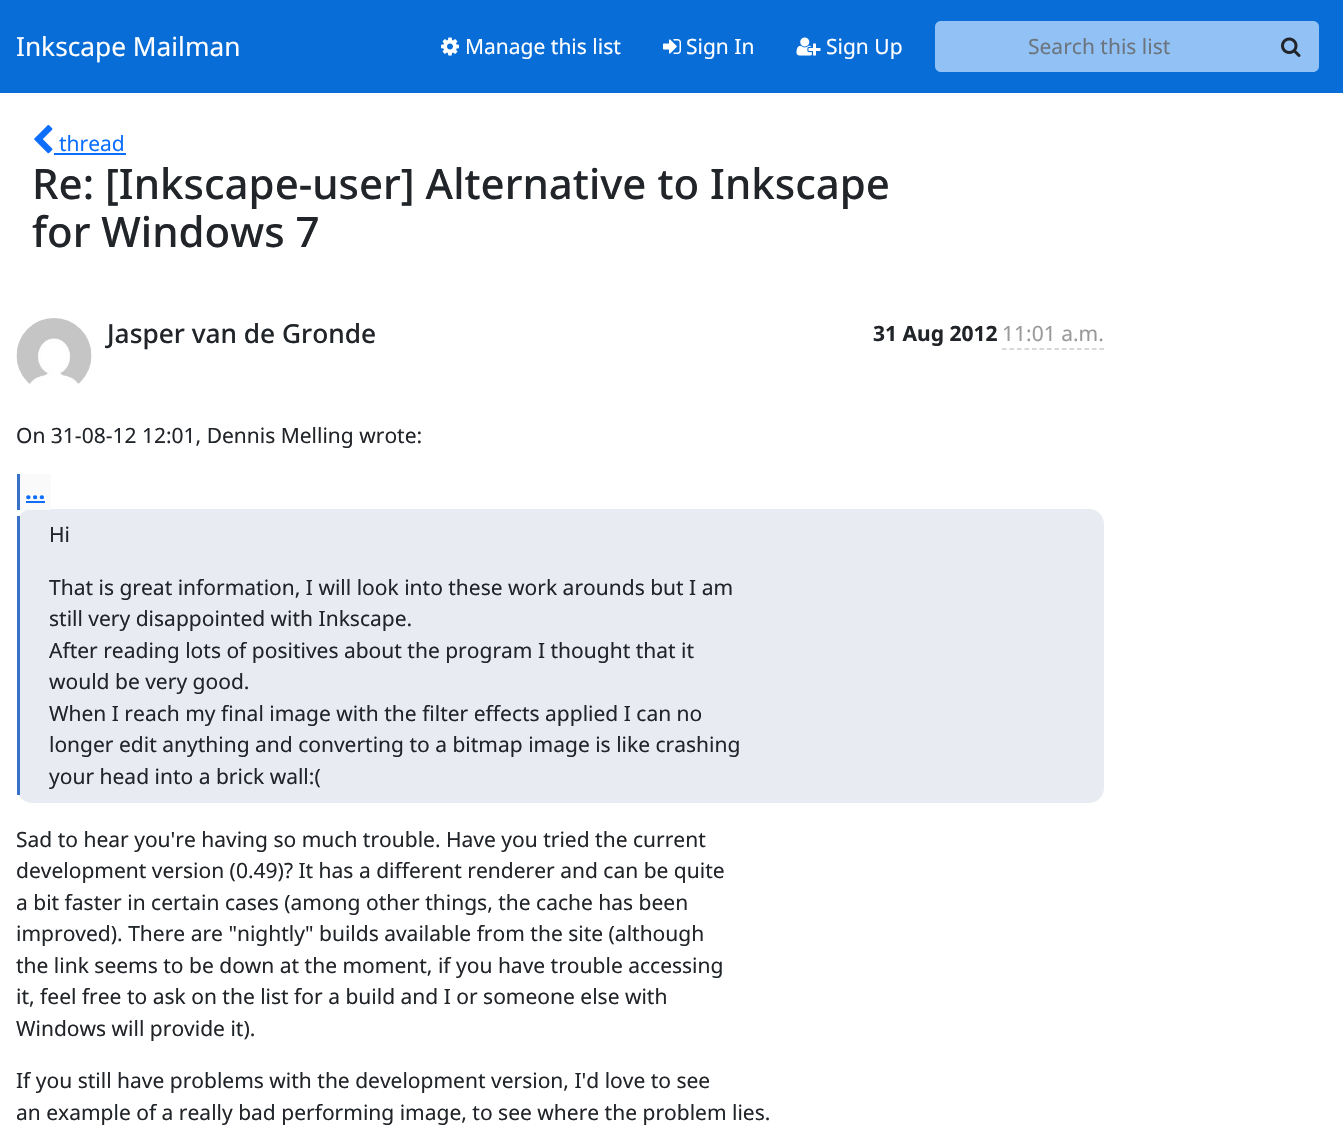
#include "include/core/SkBlurTypes.h"
#include "include/core/SkCanvas.h"
#include "include/core/SkData.h"
#include "include/core/SkFont.h"
#include "include/core/SkFontMgr.h"
#include "include/core/SkImage.h"
#include "include/core/SkMaskFilter.h"
#include "include/core/SkPaint.h"
#include "include/core/SkPathBuilder.h"
#include "include/core/SkTextBlob.h"
#include "include/effects/SkDashPathEffect.h"
#include "include/effects/SkGradientShader.h"
#include "include/utils/SkParsePath.h"

extern sk_sp<SkFontMgr> fontMgr;

void draw(SkCanvas* canvas) {
    SkPaint p;
    p.setAntiAlias(true);
    auto font = [&](const char* family, int weight, float size, bool italic = false) {
        SkFontStyle style(weight, SkFontStyle::kNormal_Width,
            italic ? SkFontStyle::kItalic_Slant : SkFontStyle::kUpright_Slant);
        SkFont result(fontMgr->matchFamilyStyle(family, style), size);
        result.setSubpixel(true);
        return result;
    };
    auto drawPhoto = [&](const char* path, float l, float t, float r, float b) {
        auto image = SkImages::DeferredFromEncodedData(SkData::MakeFromFileName(path));
        canvas->drawImageRect(image, SkRect::MakeLTRB(l, t, r, b), SkSamplingOptions());
    };
    canvas->clear(0xFFFFFFFF);
    p.setColor(0xFF086DD7);
    canvas->drawRect(SkRect::MakeLTRB(0, 0, 1343, 93), p);
    auto font1 = font("Noto Sans", 400, 26.25f);
    p.setColor(0xFFFFFFFF);
    canvas->drawString("Inkscape Mailman", 16, 56, font1, p);
    drawPhoto("media/1.png", 441, 37, 459, 56);
    auto font2 = font("Noto Sans", 400, 21);
    canvas->drawString("Manage this list", 465, 54, font2, p);
    drawPhoto("media/2.png", 663, 39, 681, 54);
    canvas->drawString("Sign In", 686, 54, font2, p);
    drawPhoto("media/3.png", 796, 37, 821, 56);
    canvas->drawString("Sign Up", 826, 54, font2, p);
    p.setColor(0xFF92C2F5);
    canvas->drawPath(SkPathBuilder().moveTo(941, 21).lineTo(1266, 21).lineTo(1266, 72).lineTo(941, 72).cubicTo(937.5f, 72, 935, 69.5f, 935, 66).lineTo(935, 27).cubicTo(935, 23.5f, 937.5f, 21, 941, 21).close().detach(), p);
    p.setColor(0xFF6C757D);
    canvas->drawString("Search this list", 1028, 54, font2, p);
    p.setColor(0xFF92C2F5);
    canvas->drawPath(SkPathBuilder().moveTo(1265, 21).lineTo(1313, 21).cubicTo(1316.5f, 21, 1319, 23.5f, 1319, 27).lineTo(1319, 66).cubicTo(1319, 69.5f, 1316.5f, 72, 1313, 72).lineTo(1265, 72).close().detach(), p);
    drawPhoto("media/4.png", 1281, 37, 1301, 57);
    drawPhoto("media/5.png", 34, 125, 53, 154);
    p.setColor(0xFF0D6EFD);
    canvas->drawString("thread", 59, 151, font2, p);
    canvas->drawRect(SkRect::MakeLTRB(54, 153, 126, 155), p);
    auto font3 = font("Noto Sans", 500, 42);
    p.setColor(0xFF212529);
    canvas->drawString("Re: [Inkscape-user] Alternative to Inkscape", 32, 199, font3, p);
    canvas->drawString("for Windows 7", 32, 247, font3, p);
    drawPhoto("media/6.png", 16, 318, 92, 384);
    auto font4 = font("Noto Sans", 500, 26.25f);
    canvas->drawString("Jasper van de Gronde", 107, 343, font4, p);
    auto font5 = font("Noto Sans", 700, 21);
    canvas->drawString("31 Aug 2012", 873, 341, font5, p);
    p.setColor(0xFF999999);
    canvas->drawString("11:01 a.m.", 1002, 341, font2, p);
    p.setStyle(SkPaint::kStroke_Style);
    p.setStrokeWidth(1.5f);
    p.setColor(0xFFCCCCCC);
    p.setPathEffect(SkDashPathEffect::Make({{4.5f, 3}}, 0));
    canvas->drawPath(SkPathBuilder().moveTo(1002, 349).lineTo(1104, 349).detach(), p);
    p.setPathEffect(nullptr);
    p.setStyle(SkPaint::kFill_Style);
    p.setColor(0xFF212529);
    canvas->drawString("On 31-08-12 12:01, Dennis Melling wrote:", 16, 443, font2, p);
    p.setColor(0xFFE8ECF2);
    canvas->drawRoundRect(SkRect::MakeLTRB(17, 509, 1104, 803), 15, 15, p);
    p.setColor(0xFFFAFAFA);
    canvas->drawRect(SkRect::MakeLTRB(20, 474, 51, 510), p);
    auto font6 = font("Noto Sans", 700, 24);
    p.setColor(0xFF0D6EFD);
    canvas->drawString("...", 25, 499, font6, p);
    {
        const struct { float l, t, r, b; SkColor color; } items[] = {
            {17, 474, 20, 510, 0xFF3771C8},
            {26, 501, 45, 503, 0xFF0D6EFD},
            {17, 516, 20, 795, 0xFF3771C8},
        };
        for (auto [l, t, r, b, color] : items) {
            p.setColor(color);
            canvas->drawRect(SkRect::MakeLTRB(l, t, r, b), p);
        }
    }
    p.setColor(0xFF212529);
    {
        const struct { const char* s; float x, y; } items[] = {
            {"Hi", 49, 542},
            {"That is great information, I will look into these work arounds but I am", 49, 595},
            {"still very disappointed with Inkscape.", 49, 626},
            {"After reading lots of positives about the program I thought that it", 49, 658},
            {"would be very good.", 49, 689},
            {"When I reach my final image with the filter effects applied I can no", 49, 721},
            {"longer edit anything and converting to a bitmap image is like crashing", 49, 752},
            {"your head into a brick wall:(", 49, 784},
            {"Sad to hear you're having so much trouble. Have you tried the current", 16, 847},
            {"development version (0.49)? It has a different renderer and can be quite", 16, 878},
            {"a bit faster in certain cases (among other things, the cache has been", 16, 910},
            {"improved). There are \"nightly\" builds available from the site (although", 16, 941},
            {"the link seems to be down at the moment, if you have trouble accessing", 16, 973},
            {"it, feel free to ask on the list for a build and I or someone else with", 16, 1004},
            {"Windows will provide it).", 16, 1036},
            {"If you still have problems with the development version, I'd love to see", 16, 1088},
            {"an example of a really bad performing image, to see where the problem lies.", 16, 1120},
        };
        for (auto [s, x, y] : items) {
            canvas->drawString(s, x, y, font2, p);
        }
    }
}
